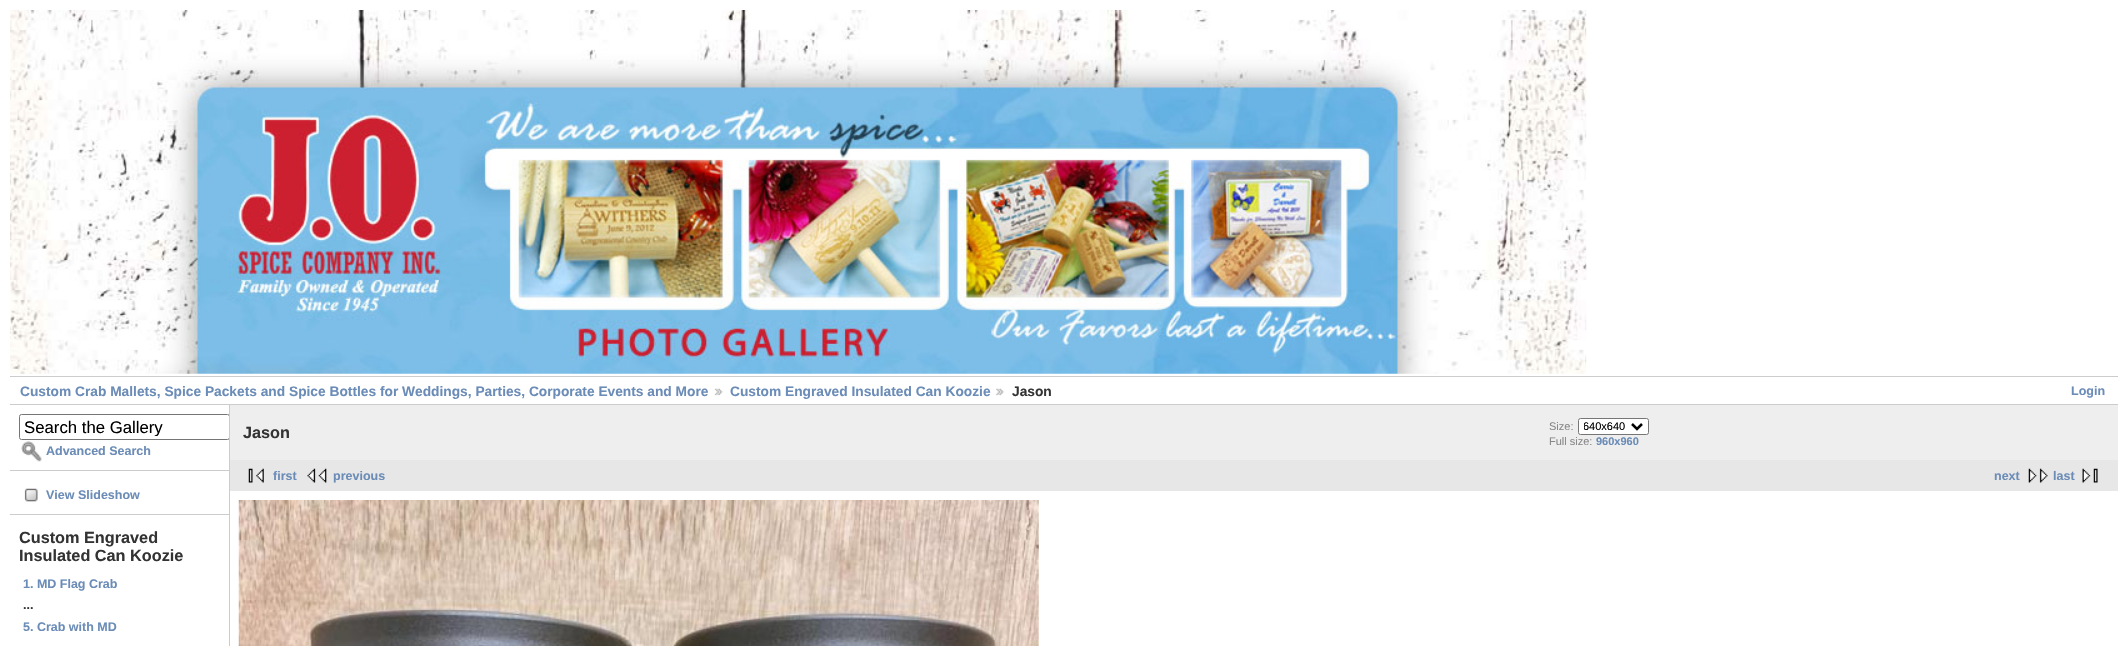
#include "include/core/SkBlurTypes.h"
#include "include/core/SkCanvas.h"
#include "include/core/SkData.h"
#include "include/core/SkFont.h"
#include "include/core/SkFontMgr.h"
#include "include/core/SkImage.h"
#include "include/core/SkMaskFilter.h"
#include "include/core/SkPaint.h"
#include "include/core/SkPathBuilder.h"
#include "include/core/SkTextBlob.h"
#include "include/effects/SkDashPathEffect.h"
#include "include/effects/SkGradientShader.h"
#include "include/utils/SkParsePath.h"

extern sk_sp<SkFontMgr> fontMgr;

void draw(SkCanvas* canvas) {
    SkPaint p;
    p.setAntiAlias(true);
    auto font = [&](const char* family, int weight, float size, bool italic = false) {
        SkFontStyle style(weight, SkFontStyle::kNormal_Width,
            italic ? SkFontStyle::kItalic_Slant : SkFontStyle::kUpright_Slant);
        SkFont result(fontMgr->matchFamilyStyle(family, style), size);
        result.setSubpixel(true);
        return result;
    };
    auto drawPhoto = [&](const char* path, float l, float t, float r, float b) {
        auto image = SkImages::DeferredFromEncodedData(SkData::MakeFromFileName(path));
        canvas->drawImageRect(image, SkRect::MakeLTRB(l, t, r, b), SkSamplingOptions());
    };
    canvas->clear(0xFFFFFFFF);
    drawPhoto("media/1.png", 10, 10, 1587, 374);
    p.setColor(0xFFCCCCCC);
    canvas->drawRect(SkRect::MakeLTRB(10, 376, 2118, 377), p);
    canvas->drawRect(SkRect::MakeLTRB(10, 404, 2118, 405), p);
    auto font1 = font("Liberation Sans", 700, 13.75f);
    p.setColor(0xFF6B8CB7);
    canvas->drawString("Custom Crab Mallets, Spice Packets and Spice Bottles for Weddings, Parties, Corporate Events and More", 20, 396, font1, p);
    drawPhoto("media/2.png", 714, 388, 723, 396);
    canvas->drawString("Custom Engraved Insulated Can Koozie", 730, 396, font1, p);
    drawPhoto("media/3.png", 996, 388, 1004, 396);
    p.setColor(0xFF333333);
    canvas->drawString("Jason", 1012, 396, font1, p);
    auto font2 = font("Liberation Sans", 700, 12.5f);
    p.setColor(0xFF6B8CB7);
    canvas->drawString("Login", 2071, 395, font2, p);
    p.setColor(0xFFCCCCCC);
    canvas->drawRect(SkRect::MakeLTRB(229, 405, 230, 646), p);
    canvas->drawRect(SkRect::MakeLTRB(10, 470, 229, 471), p);
    canvas->save();
    canvas->clipRect(SkRect::MakeLTRB(10, 405, 229, 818));
    p.setStyle(SkPaint::kStroke_Style);
    p.setStrokeWidth(1);
    p.setColor(0xFF767676);
    canvas->drawRoundRect(SkRect::MakeLTRB(19.5f, 414.5f, 229.5f, 439.5f), 2, 2, p);
    canvas->restore();
    canvas->save();
    canvas->clipRect(SkRect::MakeLTRB(24, 418, 225, 436));
    auto font3 = font("Liberation Sans", 400, 16.75f);
    p.setStyle(SkPaint::kFill_Style);
    p.setColor(0xFF000000);
    canvas->drawString("Search the Gallery", 24, 433, font3, p);
    canvas->restore();
    drawPhoto("media/4.png", 21, 441, 42, 462);
    p.setColor(0xFF6B8CB7);
    canvas->drawString("Advanced Search", 46, 455, font2, p);
    p.setColor(0xFFCCCCCC);
    canvas->drawRect(SkRect::MakeLTRB(10, 514, 229, 515), p);
    drawPhoto("media/5.png", 24, 488, 38, 502);
    p.setColor(0xFF6B8CB7);
    canvas->drawString("View Slideshow", 46, 499, font2, p);
    auto font4 = font("Liberation Sans", 700, 16.25f);
    p.setColor(0xFF333333);
    canvas->drawString("Custom Engraved", 19, 543, font4, p);
    canvas->drawString("Insulated Can Koozie", 19, 561, font4, p);
    p.setColor(0xFF6B8CB7);
    canvas->drawString("1. MD Flag Crab", 23, 588, font2, p);
    p.setColor(0xFF333333);
    canvas->drawString("...", 23, 609, font2, p);
    p.setColor(0xFF6B8CB7);
    canvas->drawString("5. Crab with MD", 23, 631, font2, p);
    p.setColor(0xFFEEEEEE);
    canvas->drawRect(SkRect::MakeLTRB(230, 405, 2118, 460), p);
    p.setColor(0xFF333333);
    canvas->drawString("Jason", 243, 438, font4, p);
    auto font5 = font("Liberation Sans", 400, 11);
    p.setColor(0xFF888888);
    canvas->drawString("Size:", 1549, 430, font5, p);
    p.setColor(0xFFFFFFFF);
    canvas->drawRoundRect(SkRect::MakeLTRB(1578.5f, 418.5f, 1648.5f, 434.5f), 2, 2, p);
    p.setStyle(SkPaint::kStroke_Style);
    p.setColor(0xFF767676);
    canvas->drawRoundRect(SkRect::MakeLTRB(1578.5f, 418.5f, 1648.5f, 434.5f), 2, 2, p);
    p.setStrokeWidth(2.5f);
    p.setColor(0xFF000000);
    canvas->drawPath(SkPathBuilder().moveTo(1632, 424).lineTo(1637, 429).lineTo(1642, 424).detach(), p);
    canvas->save();
    canvas->clipRect(SkRect::MakeLTRB(1584, 419, 1628, 434));
    p.setStyle(SkPaint::kFill_Style);
    canvas->drawString("640x640", 1583, 430, font5, p);
    canvas->restore();
    p.setColor(0xFF888888);
    canvas->drawString("Full size:", 1549, 445, font5, p);
    auto font6 = font("Liberation Sans", 700, 11);
    p.setColor(0xFF6B8CB7);
    canvas->drawString("960x960", 1596, 445, font6, p);
    p.setColor(0xFFE7E7E7);
    canvas->drawRect(SkRect::MakeLTRB(230, 460, 2118, 491), p);
    drawPhoto("media/6.png", 248, 468, 264, 483);
    p.setColor(0xFF6B8CB7);
    canvas->drawString("first", 273, 480, font2, p);
    drawPhoto("media/7.png", 307, 468, 327, 483);
    canvas->drawString("previous", 333, 480, font2, p);
    canvas->drawString("next", 1994, 480, font2, p);
    drawPhoto("media/8.png", 2028, 468, 2048, 483);
    canvas->drawString("last", 2053, 480, font2, p);
    drawPhoto("media/9.png", 2082, 468, 2098, 483);
    drawPhoto("media/10.png", 238, 500, 1039, 646);
}
